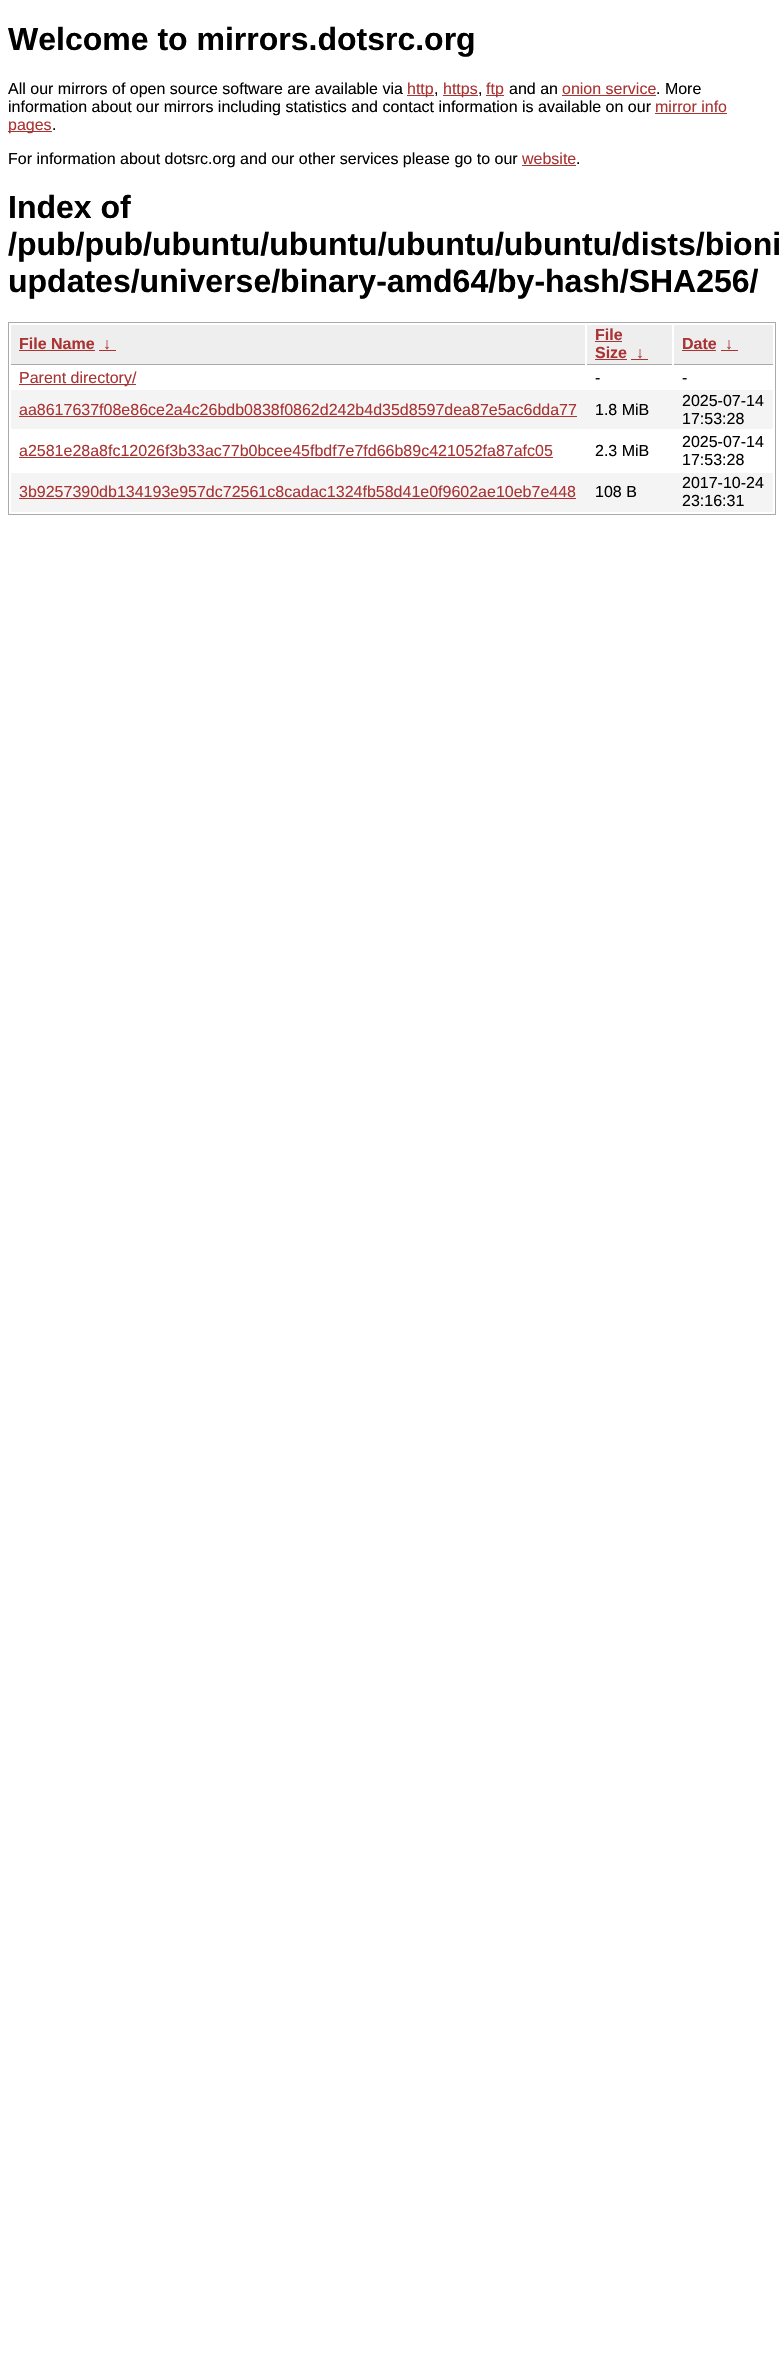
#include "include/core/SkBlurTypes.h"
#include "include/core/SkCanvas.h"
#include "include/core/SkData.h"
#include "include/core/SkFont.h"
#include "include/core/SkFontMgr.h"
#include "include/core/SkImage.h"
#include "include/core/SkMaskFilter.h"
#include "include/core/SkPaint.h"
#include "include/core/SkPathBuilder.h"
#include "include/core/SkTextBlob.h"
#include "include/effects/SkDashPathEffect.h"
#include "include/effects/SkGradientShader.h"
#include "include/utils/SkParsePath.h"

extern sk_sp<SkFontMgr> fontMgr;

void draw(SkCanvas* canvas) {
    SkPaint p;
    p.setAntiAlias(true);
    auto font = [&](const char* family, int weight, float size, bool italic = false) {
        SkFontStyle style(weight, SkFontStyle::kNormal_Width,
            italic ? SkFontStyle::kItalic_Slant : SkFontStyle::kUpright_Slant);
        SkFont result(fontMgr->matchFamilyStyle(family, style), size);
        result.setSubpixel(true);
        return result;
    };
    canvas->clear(0xFFFFFFFF);
    auto font1 = font("Liberation Sans", 700, 32);
    p.setColor(0xFF000000);
    canvas->drawString("Welcome to mirrors.dotsrc.org", 8, 50, font1, p);
    auto font2 = font("Liberation Sans", 400, 16);
    canvas->drawString("All our mirrors of open source software are available via", 8, 94, font2, p);
    p.setColor(0xFFAA3333);
    canvas->drawRect(SkRect::MakeLTRB(407, 95, 434, 96), p);
    canvas->drawString("http", 407, 94, font2, p);
    p.setColor(0xFF000000);
    canvas->drawString(",", 434, 94, font2, p);
    p.setColor(0xFFAA3333);
    canvas->drawRect(SkRect::MakeLTRB(443, 95, 478, 96), p);
    canvas->drawString("https", 443, 94, font2, p);
    p.setColor(0xFF000000);
    canvas->drawString(",", 478, 94, font2, p);
    p.setColor(0xFFAA3333);
    canvas->drawRect(SkRect::MakeLTRB(486, 95, 504, 96), p);
    canvas->drawString("ftp", 486, 94, font2, p);
    p.setColor(0xFF000000);
    canvas->drawString("and an", 509, 94, font2, p);
    p.setColor(0xFFAA3333);
    canvas->drawString("onion service", 562, 94, font2, p);
    canvas->drawRect(SkRect::MakeLTRB(562, 95, 656, 96), p);
    p.setColor(0xFF000000);
    canvas->drawString(". More", 656, 94, font2, p);
    canvas->drawString("information about our mirrors including statistics and contact information is available on our", 8, 112, font2, p);
    p.setColor(0xFFAA3333);
    canvas->drawString("mirror info", 655, 112, font2, p);
    canvas->drawRect(SkRect::MakeLTRB(655, 113, 727, 114), p);
    canvas->drawRect(SkRect::MakeLTRB(8, 131, 52, 132), p);
    canvas->drawString("pages", 8, 130, font2, p);
    p.setColor(0xFF000000);
    canvas->drawString(".", 52, 130, font2, p);
    canvas->drawString("For information about dotsrc.org and our other services please go to our", 8, 164, font2, p);
    p.setColor(0xFFAA3333);
    canvas->drawString("website", 522, 164, font2, p);
    canvas->drawRect(SkRect::MakeLTRB(522, 165, 576, 166), p);
    p.setColor(0xFF000000);
    canvas->drawString(".", 576, 164, font2, p);
    {
        const struct { const char* s; float x, y; } items[] = {
            {"Index of", 8, 218},
            {"/pub/pub/ubuntu/ubuntu/ubuntu/ubuntu/dists/bioni", 8, 255},
            {"updates/universe/binary-amd64/by-hash/SHA256/", 8, 292},
        };
        for (auto [s, x, y] : items) {
            canvas->drawString(s, x, y, font1, p);
        }
    }
    p.setStyle(SkPaint::kStroke_Style);
    p.setStrokeWidth(1);
    p.setColor(0xFFAAAAAA);
    canvas->drawRect(SkRect::MakeLTRB(8.5f, 322.5f, 775.5f, 514.5f), p);
    p.setStyle(SkPaint::kFill_Style);
    p.setColor(0xFFEEEEEE);
    canvas->drawRect(SkRect::MakeLTRB(11, 325, 585, 364), p);
    p.setColor(0xFFAAAAAA);
    canvas->drawRect(SkRect::MakeLTRB(11, 364, 585, 365), p);
    auto font3 = font("Liberation Sans", 700, 16);
    p.setColor(0xFFAA3333);
    canvas->drawString("File Name", 19, 349, font3, p);
    canvas->drawRect(SkRect::MakeLTRB(19, 350, 95, 351), p);
    canvas->drawString("↓", 103, 349, font3, p);
    {
        const struct { float l, t, r, b; SkColor color; } items[] = {
            {99, 350, 116, 351, 0xFFAA3333},
            {587, 325, 672, 364, 0xFFEEEEEE},
            {587, 364, 672, 365, 0xFFAAAAAA},
        };
        for (auto [l, t, r, b, color] : items) {
            p.setColor(color);
            canvas->drawRect(SkRect::MakeLTRB(l, t, r, b), p);
        }
    }
    p.setColor(0xFFAA3333);
    canvas->drawString("File", 595, 340, font3, p);
    canvas->drawRect(SkRect::MakeLTRB(595, 341, 622, 342), p);
    canvas->drawString("Size", 595, 358, font3, p);
    canvas->drawRect(SkRect::MakeLTRB(595, 359, 627, 360), p);
    canvas->drawString("↓", 636, 358, font3, p);
    {
        const struct { float l, t, r, b; SkColor color; } items[] = {
            {631, 359, 648, 360, 0xFFAA3333},
            {674, 325, 773, 364, 0xFFEEEEEE},
            {674, 364, 773, 365, 0xFFAAAAAA},
        };
        for (auto [l, t, r, b, color] : items) {
            p.setColor(color);
            canvas->drawRect(SkRect::MakeLTRB(l, t, r, b), p);
        }
    }
    p.setColor(0xFFAA3333);
    canvas->drawString("Date", 682, 349, font3, p);
    canvas->drawRect(SkRect::MakeLTRB(682, 350, 716, 351), p);
    canvas->drawString("↓", 725, 349, font3, p);
    canvas->drawRect(SkRect::MakeLTRB(721, 350, 738, 351), p);
    canvas->drawRect(SkRect::MakeLTRB(19, 384, 136, 385), p);
    canvas->drawString("Parent directory/", 19, 383, font2, p);
    p.setColor(0xFF000000);
    canvas->drawString("-", 595, 383, font2, p);
    canvas->drawString("-", 682, 383, font2, p);
    p.setColor(0xFFF4F4F4);
    canvas->drawRect(SkRect::MakeLTRB(11, 390, 773, 429), p);
    p.setColor(0xFFAA3333);
    canvas->drawString("aa8617637f08e86ce2a4c26bdb0838f0862d242b4d35d8597dea87e5ac6dda77", 19, 415, font2, p);
    canvas->drawRect(SkRect::MakeLTRB(19, 416, 577, 417), p);
    p.setColor(0xFF000000);
    {
        const struct { const char* s; float x, y; } items[] = {
            {"1.8 MiB", 595, 415},
            {"2025-07-14", 682, 406},
            {"17:53:28", 682, 424},
        };
        for (auto [s, x, y] : items) {
            canvas->drawString(s, x, y, font2, p);
        }
    }
    p.setColor(0xFFAA3333);
    canvas->drawString("a2581e28a8fc12026f3b33ac77b0bcee45fbdf7e7fd66b89c421052fa87afc05", 19, 456, font2, p);
    canvas->drawRect(SkRect::MakeLTRB(19, 457, 553, 458), p);
    p.setColor(0xFF000000);
    {
        const struct { const char* s; float x, y; } items[] = {
            {"2.3 MiB", 595, 456},
            {"2025-07-14", 682, 447},
            {"17:53:28", 682, 465},
        };
        for (auto [s, x, y] : items) {
            canvas->drawString(s, x, y, font2, p);
        }
    }
    p.setColor(0xFFF4F4F4);
    canvas->drawRect(SkRect::MakeLTRB(11, 473, 773, 512), p);
    p.setColor(0xFFAA3333);
    canvas->drawString("3b9257390db134193e957dc72561c8cadac1324fb58d41e0f9602ae10eb7e448", 19, 497, font2, p);
    canvas->drawRect(SkRect::MakeLTRB(19, 498, 576, 499), p);
    p.setColor(0xFF000000);
    {
        const struct { const char* s; float x, y; } items[] = {
            {"108 B", 595, 497},
            {"2017-10-24", 682, 488},
            {"23:16:31", 682, 506},
        };
        for (auto [s, x, y] : items) {
            canvas->drawString(s, x, y, font2, p);
        }
    }
}
